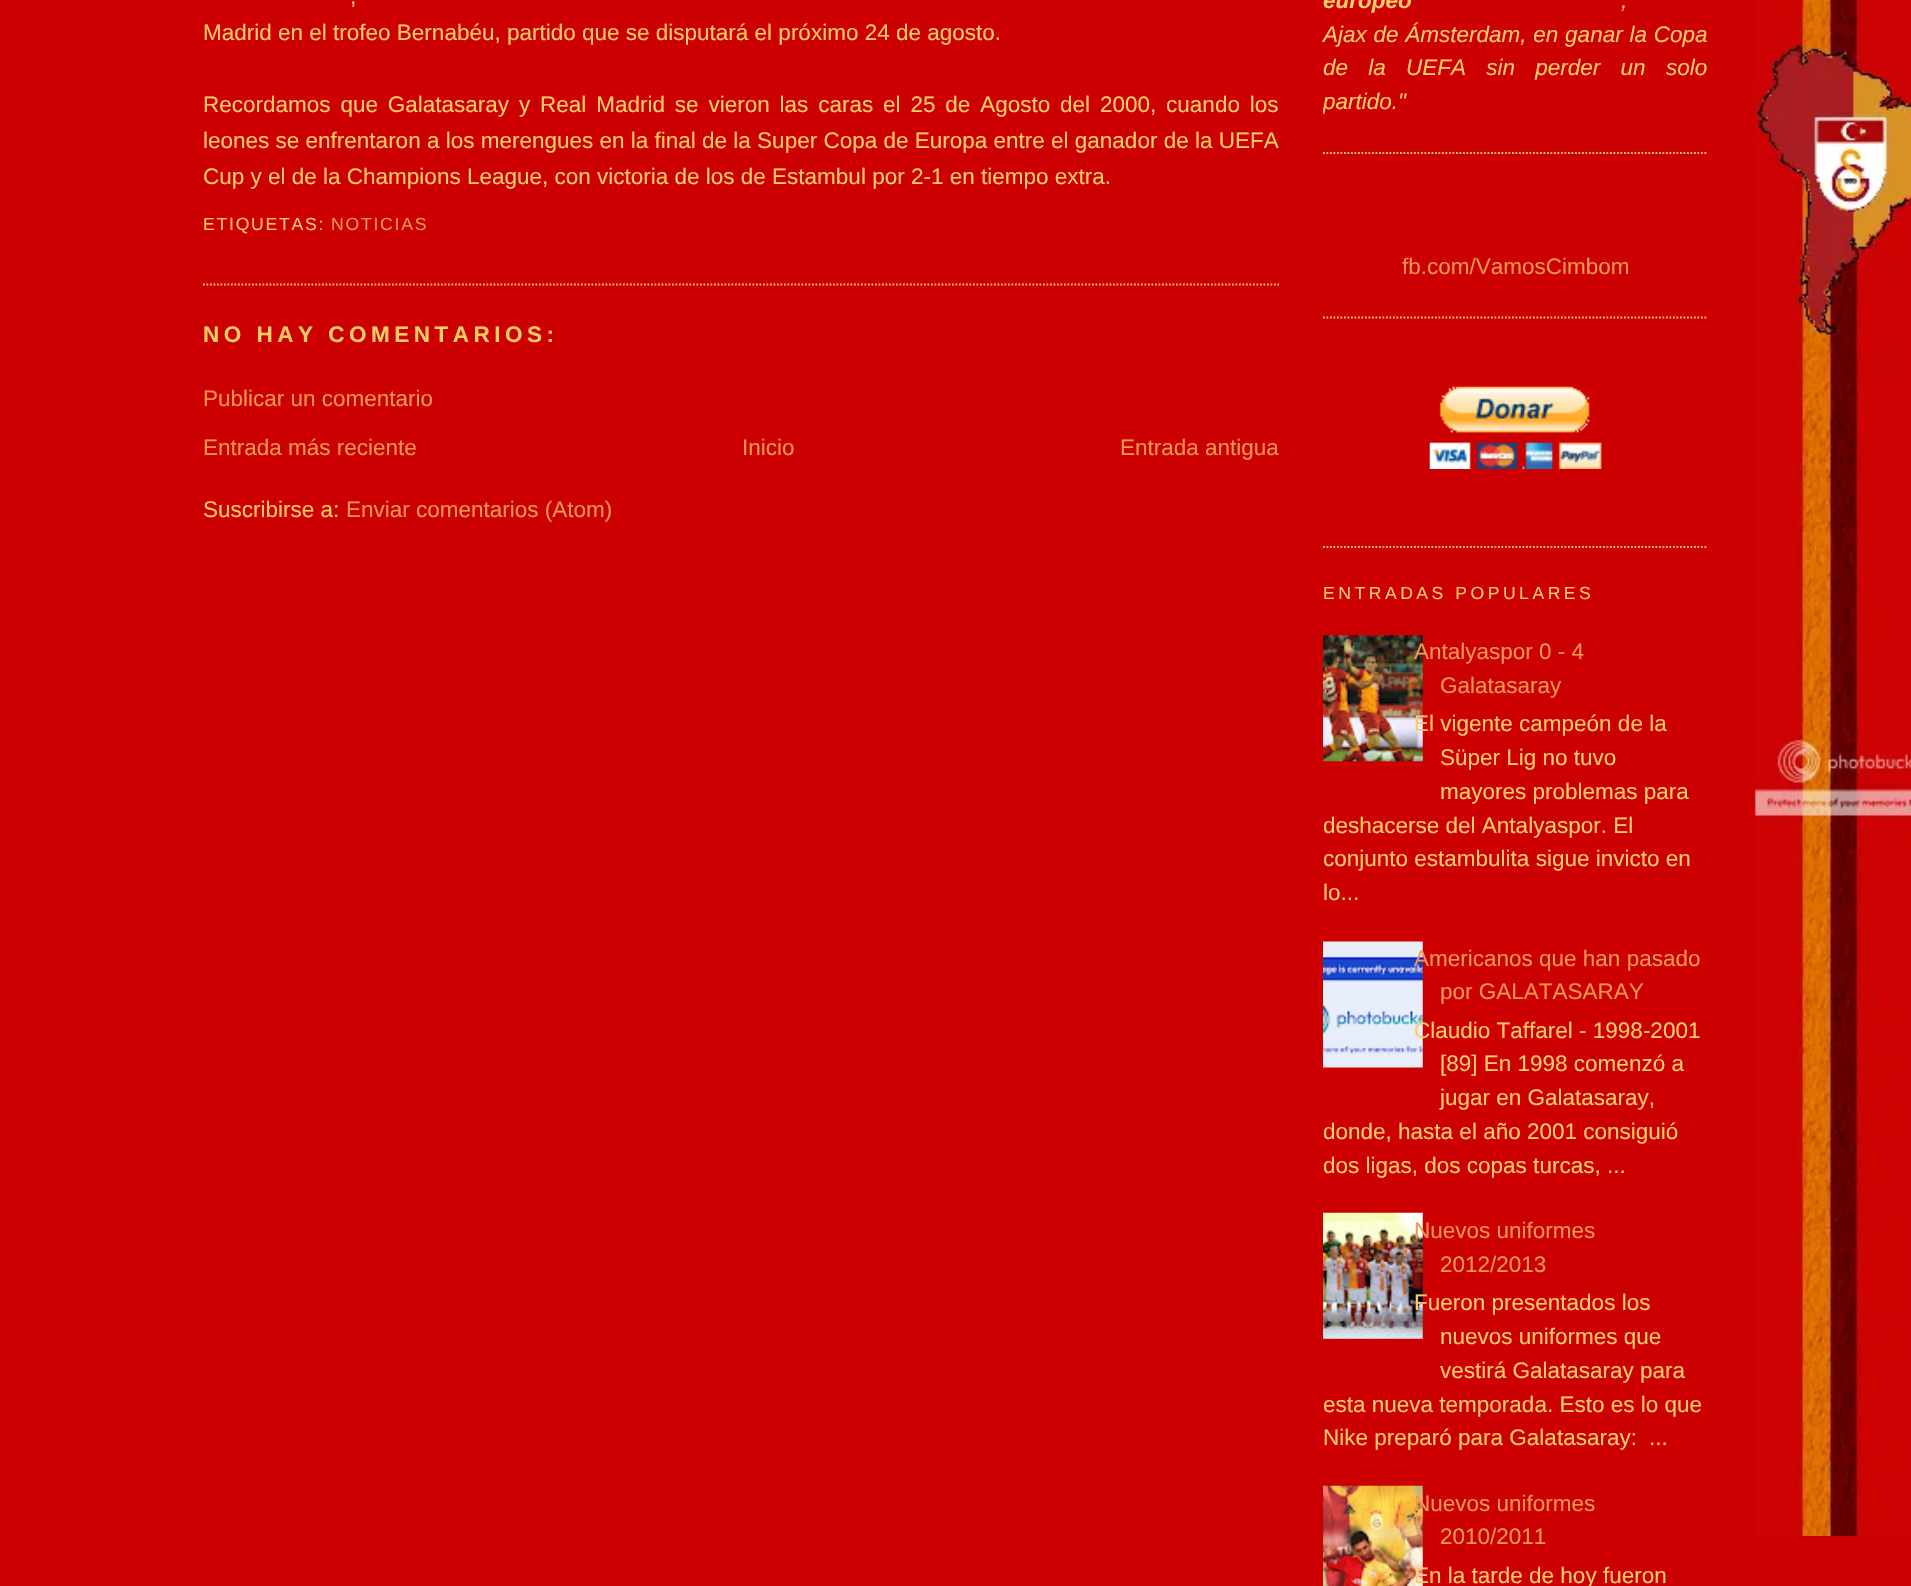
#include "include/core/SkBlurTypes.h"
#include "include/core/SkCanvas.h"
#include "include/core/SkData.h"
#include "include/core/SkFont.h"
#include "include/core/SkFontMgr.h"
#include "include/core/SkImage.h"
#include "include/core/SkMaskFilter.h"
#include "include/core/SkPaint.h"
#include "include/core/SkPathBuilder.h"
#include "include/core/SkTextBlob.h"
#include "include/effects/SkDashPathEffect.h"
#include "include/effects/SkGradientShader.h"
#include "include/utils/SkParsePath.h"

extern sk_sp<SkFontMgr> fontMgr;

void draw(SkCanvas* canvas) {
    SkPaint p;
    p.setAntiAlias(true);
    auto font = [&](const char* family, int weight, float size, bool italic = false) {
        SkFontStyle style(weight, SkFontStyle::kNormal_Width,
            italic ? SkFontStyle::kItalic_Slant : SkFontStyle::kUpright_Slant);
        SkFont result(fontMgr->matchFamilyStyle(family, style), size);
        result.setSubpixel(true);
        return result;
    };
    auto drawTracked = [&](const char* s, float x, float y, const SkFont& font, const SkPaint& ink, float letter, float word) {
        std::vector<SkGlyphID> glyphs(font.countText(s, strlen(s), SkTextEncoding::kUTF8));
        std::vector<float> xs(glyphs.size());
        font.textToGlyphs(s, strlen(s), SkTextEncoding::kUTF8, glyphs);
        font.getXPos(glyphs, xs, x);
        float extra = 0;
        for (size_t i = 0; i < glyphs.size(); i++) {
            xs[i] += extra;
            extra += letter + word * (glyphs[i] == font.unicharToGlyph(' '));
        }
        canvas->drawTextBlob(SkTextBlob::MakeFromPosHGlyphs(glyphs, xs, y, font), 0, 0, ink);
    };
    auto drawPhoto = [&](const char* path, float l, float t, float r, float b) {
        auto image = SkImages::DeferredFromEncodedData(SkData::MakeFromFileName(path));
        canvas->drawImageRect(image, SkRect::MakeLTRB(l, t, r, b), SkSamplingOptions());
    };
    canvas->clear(0xFFCC0000);
    p.setStyle(SkPaint::kStroke_Style);
    p.setStrokeWidth(1.8f);
    p.setColor(0xFFFFCC66);
    p.setPathEffect(SkDashPathEffect::Make({{1.75f, 1.75f}}, 0));
    canvas->drawPath(SkPathBuilder().moveTo(203, 284.5f).lineTo(1279, 284.5f).detach(), p);
    p.setPathEffect(nullptr);
    auto font1 = font("Liberation Sans", 400, 22.5f);
    p.setStyle(SkPaint::kFill_Style);
    drawTracked(",", 350, 4, font1, p, 0, 3);
    canvas->drawString("Madrid en el trofeo Bernabéu, partido que se disputará el próximo 24 de agosto.", 203, 40, font1, p);
    drawTracked("Recordamos que Galatasaray y Real Madrid se vieron las caras el 25 de Agosto del 2000, cuando los", 203, 112, font1, p, 0, 3.6f);
    canvas->drawString("leones se enfrentaron a los merengues en la final de la Super Copa de Europa entre el ganador de la UEFA", 203, 148, font1, p);
    canvas->drawString("Cup y el de la Champions League, con victoria de los de Estambul por 2-1 en tiempo extra.", 203, 184, font1, p);
    auto font2 = font("Liberation Sans", 400, 17.6f);
    drawTracked("ETIQUETAS:", 203, 230, font2, p, 1.75f, 0);
    p.setColor(0xFFF2984C);
    drawTracked("NOTICIAS", 331, 230, font2, p, 1.75f, 0);
    auto font3 = font("Liberation Sans", 700, 22.5f);
    p.setColor(0xFFFFCC66);
    drawTracked("NO HAY COMENTARIOS:", 203, 342, font3, p, 4.5f, 0);
    p.setColor(0xFFF2984C);
    {
        const struct { const char* s; float x, y; } items[] = {
            {"Publicar un comentario", 203, 406},
            {"Entrada más reciente", 203, 455},
            {"Inicio", 742, 455},
            {"Entrada antigua", 1120, 455},
        };
        for (auto [s, x, y] : items) {
            canvas->drawString(s, x, y, font1, p);
        }
    }
    p.setColor(0xFFFFCC66);
    canvas->drawString("Suscribirse a:", 203, 517, font1, p);
    p.setColor(0xFFF2984C);
    canvas->drawString("Enviar comentarios (Atom)", 346, 517, font1, p);
    p.setStyle(SkPaint::kStroke_Style);
    p.setColor(0xFFFFCC66);
    p.setPathEffect(SkDashPathEffect::Make({{1.75f, 1.75f}}, 0));
    canvas->drawPath(SkPathBuilder().moveTo(1323, 153).lineTo(1708, 153).detach(), p);
    p.setPathEffect(nullptr);
    auto font4 = font("Liberation Sans", 700, 22.5f, true);
    p.setStyle(SkPaint::kFill_Style);
    canvas->drawString("europeo", 1323, 8, font4, p);
    auto font5 = font("Liberation Sans", 400, 22.5f, true);
    drawTracked(",", 1621, 8, font5, p, 0, 7);
    drawTracked("Ajax de Ámsterdam, en ganar la Copa", 1323, 42, font5, p, 0, 0.5f);
    drawTracked("de la UEFA sin perder un solo", 1323, 75, font5, p, 0, 14);
    canvas->save();
    canvas->clipRect(SkRect::MakeLTRB(1323, 0, 1708, 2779));
    canvas->drawString("partido.\"", 1323, 109, font5, p);
    canvas->restore();
    p.setStyle(SkPaint::kStroke_Style);
    p.setPathEffect(SkDashPathEffect::Make({{1.75f, 1.75f}}, 0));
    canvas->drawPath(SkPathBuilder().moveTo(1323, 317.5f).lineTo(1708, 317.5f).detach(), p);
    p.setPathEffect(nullptr);
    p.setStyle(SkPaint::kFill_Style);
    p.setColor(0xFFF2984C);
    canvas->drawString("fb.com/VamosCimbom", 1402, 274, font1, p);
    p.setStyle(SkPaint::kStroke_Style);
    p.setColor(0xFFFFCC66);
    p.setPathEffect(SkDashPathEffect::Make({{1.75f, 1.75f}}, 0));
    canvas->drawPath(SkPathBuilder().moveTo(1323, 547).lineTo(1708, 547).detach(), p);
    p.setPathEffect(nullptr);
    drawPhoto("media/1.png", 1429, 386, 1602, 469);
    p.setStyle(SkPaint::kFill_Style);
    drawTracked("ENTRADAS POPULARES", 1323, 599, font2, p, 3.5f, 0);
    drawPhoto("media/2.png", 1323, 635, 1423, 762);
    p.setColor(0xFFF2984C);
    canvas->drawString("Antalyaspor 0 - 4", 1414, 659, font1, p);
    canvas->drawString("Galatasaray", 1440, 693, font1, p);
    p.setColor(0xFFFFCC66);
    {
        const struct { const char* s; float x, y; } items[] = {
            {"El vigente campeón de la", 1414, 731},
            {"Süper Lig no tuvo", 1440, 765},
            {"mayores problemas para", 1440, 799},
            {"deshacerse del Antalyaspor. El", 1323, 833},
            {"conjunto estambulita sigue invicto en", 1323, 866},
            {"lo...", 1323, 900},
        };
        for (auto [s, x, y] : items) {
            canvas->drawString(s, x, y, font1, p);
        }
    }
    drawPhoto("media/3.png", 1323, 941, 1423, 1068);
    p.setColor(0xFFF2984C);
    canvas->drawString("Americanos que han pasado", 1414, 966, font1, p);
    canvas->drawString("por GALATASARAY", 1440, 999, font1, p);
    p.setColor(0xFFFFCC66);
    {
        const struct { const char* s; float x, y; } items[] = {
            {"Claudio Taffarel - 1998-2001", 1414, 1038},
            {"[89] En 1998 comenzó a", 1440, 1071},
            {"jugar en Galatasaray,", 1440, 1105},
            {"donde, hasta el año 2001 consiguió", 1323, 1139},
            {"dos ligas, dos copas turcas, ...", 1323, 1173},
        };
        for (auto [s, x, y] : items) {
            canvas->drawString(s, x, y, font1, p);
        }
    }
    drawPhoto("media/4.png", 1323, 1212, 1423, 1339);
    p.setColor(0xFFF2984C);
    canvas->drawString("Nuevos uniformes", 1414, 1238, font1, p);
    canvas->drawString("2012/2013", 1440, 1272, font1, p);
    p.setColor(0xFFFFCC66);
    {
        const struct { const char* s; float x, y; } items[] = {
            {"Fueron presentados los", 1414, 1310},
            {"nuevos uniformes que", 1440, 1344},
            {"vestirá Galatasaray para", 1440, 1378},
            {"esta nueva temporada. Esto es lo que", 1323, 1412},
            {"Nike preparó para Galatasaray:", 1323, 1445},
            {"...", 1649, 1445},
        };
        for (auto [s, x, y] : items) {
            canvas->drawString(s, x, y, font1, p);
        }
    }
    drawPhoto("media/5.png", 1323, 1485, 1423, 1586);
    p.setColor(0xFFF2984C);
    canvas->drawString("Nuevos uniformes", 1414, 1511, font1, p);
    canvas->drawString("2010/2011", 1440, 1544, font1, p);
    p.setColor(0xFFFFCC66);
    canvas->drawString("En la tarde de hoy fueron", 1414, 1583, font1, p);
    drawPhoto("media/6.png", 1754, 0, 1911, 1536);
}
